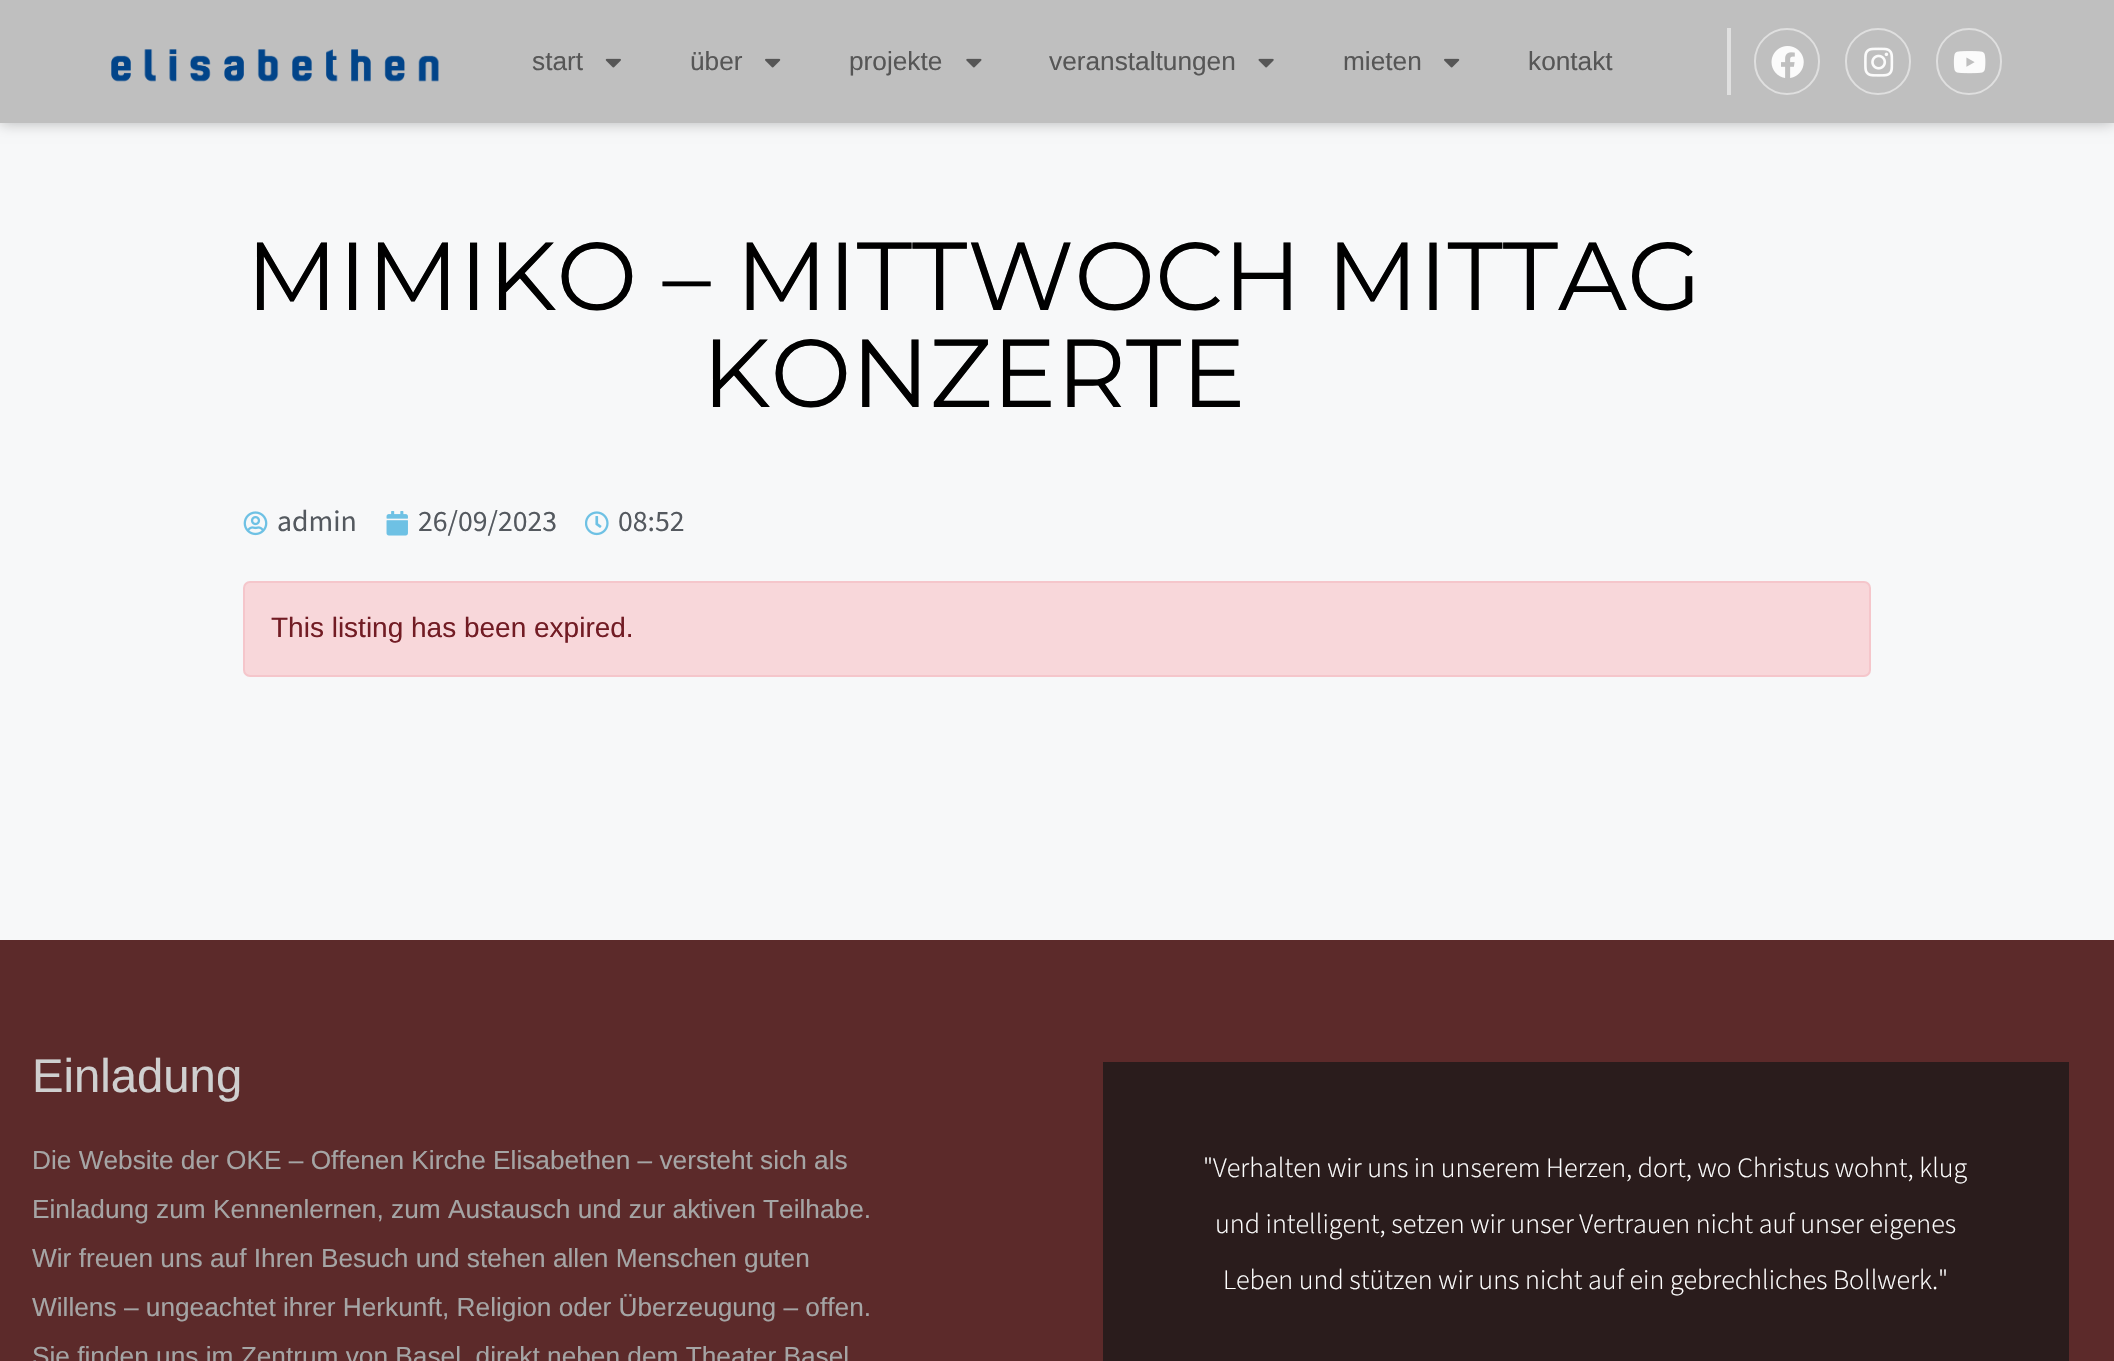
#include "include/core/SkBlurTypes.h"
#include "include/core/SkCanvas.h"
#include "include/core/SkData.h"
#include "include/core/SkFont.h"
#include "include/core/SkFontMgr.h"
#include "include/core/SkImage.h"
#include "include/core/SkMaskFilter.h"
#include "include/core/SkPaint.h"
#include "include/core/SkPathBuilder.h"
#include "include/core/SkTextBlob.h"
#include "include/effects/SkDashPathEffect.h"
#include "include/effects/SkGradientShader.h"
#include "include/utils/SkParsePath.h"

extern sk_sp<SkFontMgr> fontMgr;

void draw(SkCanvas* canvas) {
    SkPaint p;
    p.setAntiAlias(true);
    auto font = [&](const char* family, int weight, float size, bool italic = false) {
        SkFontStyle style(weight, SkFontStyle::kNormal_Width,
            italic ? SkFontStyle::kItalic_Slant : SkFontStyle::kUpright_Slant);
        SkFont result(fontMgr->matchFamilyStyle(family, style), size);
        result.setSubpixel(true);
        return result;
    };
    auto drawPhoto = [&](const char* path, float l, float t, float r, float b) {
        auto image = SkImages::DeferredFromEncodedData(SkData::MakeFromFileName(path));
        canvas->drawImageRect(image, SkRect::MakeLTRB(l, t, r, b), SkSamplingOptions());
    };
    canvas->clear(0xFFF7F8F9);
    p.setColor(0x45000000);
    p.setMaskFilter(SkMaskFilter::MakeBlur(kNormal_SkBlurStyle, 7));
    canvas->drawRect(SkRect::MakeLTRB(0, 0, 2114, 123), p);
    p.setMaskFilter(nullptr);
    p.setColor(0xFFBFBFBF);
    canvas->drawRect(SkRect::MakeLTRB(0, 0, 2114, 123), p);
    drawPhoto("media/1.png", 111, 49, 439, 82);
    auto font1 = font("Liberation Sans", 400, 26.25f);
    p.setColor(0xFF565656);
    canvas->drawString("start", 532, 70, font1, p);
    drawPhoto("media/2.png", 605, 58, 621, 68);
    canvas->drawString("über", 690, 70, font1, p);
    drawPhoto("media/3.png", 765, 58, 781, 68);
    canvas->drawString("projekte", 849, 70, font1, p);
    drawPhoto("media/4.png", 966, 58, 982, 68);
    canvas->drawString("veranstaltungen", 1049, 70, font1, p);
    drawPhoto("media/5.png", 1258, 58, 1274, 68);
    canvas->drawString("mieten", 1343, 70, font1, p);
    drawPhoto("media/3.png", 1444, 58, 1460, 68);
    canvas->drawString("kontakt", 1528, 70, font1, p);
    p.setColor(0xFFE0E0E0);
    canvas->drawRect(SkRect::MakeLTRB(1727, 28, 1731, 95), p);
    p.setStyle(SkPaint::kStroke_Style);
    p.setStrokeWidth(2);
    p.setColor(0xFFDFDFDF);
    canvas->drawRoundRect(SkRect::MakeLTRB(1755, 29, 1819, 94), 32, 32, p);
    drawPhoto("media/6.png", 1771, 46, 1804, 78);
    canvas->drawRoundRect(SkRect::MakeLTRB(1846, 29, 1910, 94), 32, 32, p);
    drawPhoto("media/7.png", 1864, 47, 1894, 77);
    canvas->drawRoundRect(SkRect::MakeLTRB(1937, 29, 2001, 94), 32, 32, p);
    drawPhoto("media/8.png", 1953, 51, 1986, 74);
    auto font2 = font("Montserrat", 400, 96.25f);
    p.setStyle(SkPaint::kFill_Style);
    p.setColor(0xFF000000);
    canvas->drawString("MIMIKO – MITTWOCH MITTAG", 246, 310, font2, p);
    canvas->drawString("KONZERTE", 702, 407, font2, p);
    drawPhoto("media/9.png", 243, 511, 268, 536);
    auto font3 = font("Source Sans 3", 400, 29.75f);
    p.setColor(0xFF54595F);
    canvas->drawString("admin", 277, 531, font3, p);
    drawPhoto("media/10.png", 386, 511, 408, 536);
    canvas->drawString("26/09/2023", 418, 531, font3, p);
    drawPhoto("media/11.png", 585, 511, 609, 536);
    canvas->drawString("08:52", 618, 531, font3, p);
    p.setColor(0xFFF8D7DA);
    canvas->drawRoundRect(SkRect::MakeLTRB(244, 582, 1870, 676), 6, 6, p);
    p.setStyle(SkPaint::kStroke_Style);
    p.setColor(0xFFF5C6CB);
    canvas->drawRoundRect(SkRect::MakeLTRB(244, 582, 1870, 676), 6, 6, p);
    auto font4 = font("Liberation Sans", 400, 28);
    p.setStyle(SkPaint::kFill_Style);
    p.setColor(0xFF721C24);
    canvas->drawString("This listing has been expired.", 271, 637, font4, p);
    p.setColor(0xFF5C2A2A);
    canvas->drawRect(SkRect::MakeLTRB(0, 940, 2114, 1361), p);
    auto font5 = font("Liberation Sans", 400, 47.25f);
    p.setColor(0xFFCFCFCF);
    canvas->drawString("Einladung", 32, 1092, font5, p);
    p.setColor(0xFFA5A5A5);
    {
        const struct { const char* s; float x, y; } items[] = {
            {"Die Website der OKE – Offenen Kirche Elisabethen – versteht sich als", 32, 1169},
            {"Einladung zum Kennenlernen, zum Austausch und zur aktiven Teilhabe.", 32, 1218},
            {"Wir freuen uns auf Ihren Besuch und stehen allen Menschen guten", 32, 1267},
            {"Willens – ungeachtet ihrer Herkunft, Religion oder Überzeugung – offen.", 32, 1316},
            {"Sie finden uns im Zentrum von Basel, direkt neben dem Theater Basel", 32, 1365},
        };
        for (auto [s, x, y] : items) {
            canvas->drawString(s, x, y, font1, p);
        }
    }
    p.setColor(0xFF2A1C1C);
    canvas->drawRect(SkRect::MakeLTRB(1103, 1062, 2069, 1361), p);
    auto font6 = font("Source Sans 3", 300, 28);
    p.setColor(0xFFFFFFFF);
    {
        const struct { const char* s; float x, y; } items[] = {
            {"\"Verhalten wir uns in unserem Herzen, dort, wo Christus wohnt, klug", 1203, 1177},
            {"und intelligent, setzen wir unser Vertrauen nicht auf unser eigenes", 1215, 1233},
            {"Leben und stützen wir uns nicht auf ein gebrechliches Bollwerk.\"", 1223, 1289},
        };
        for (auto [s, x, y] : items) {
            canvas->drawString(s, x, y, font6, p);
        }
    }
}
